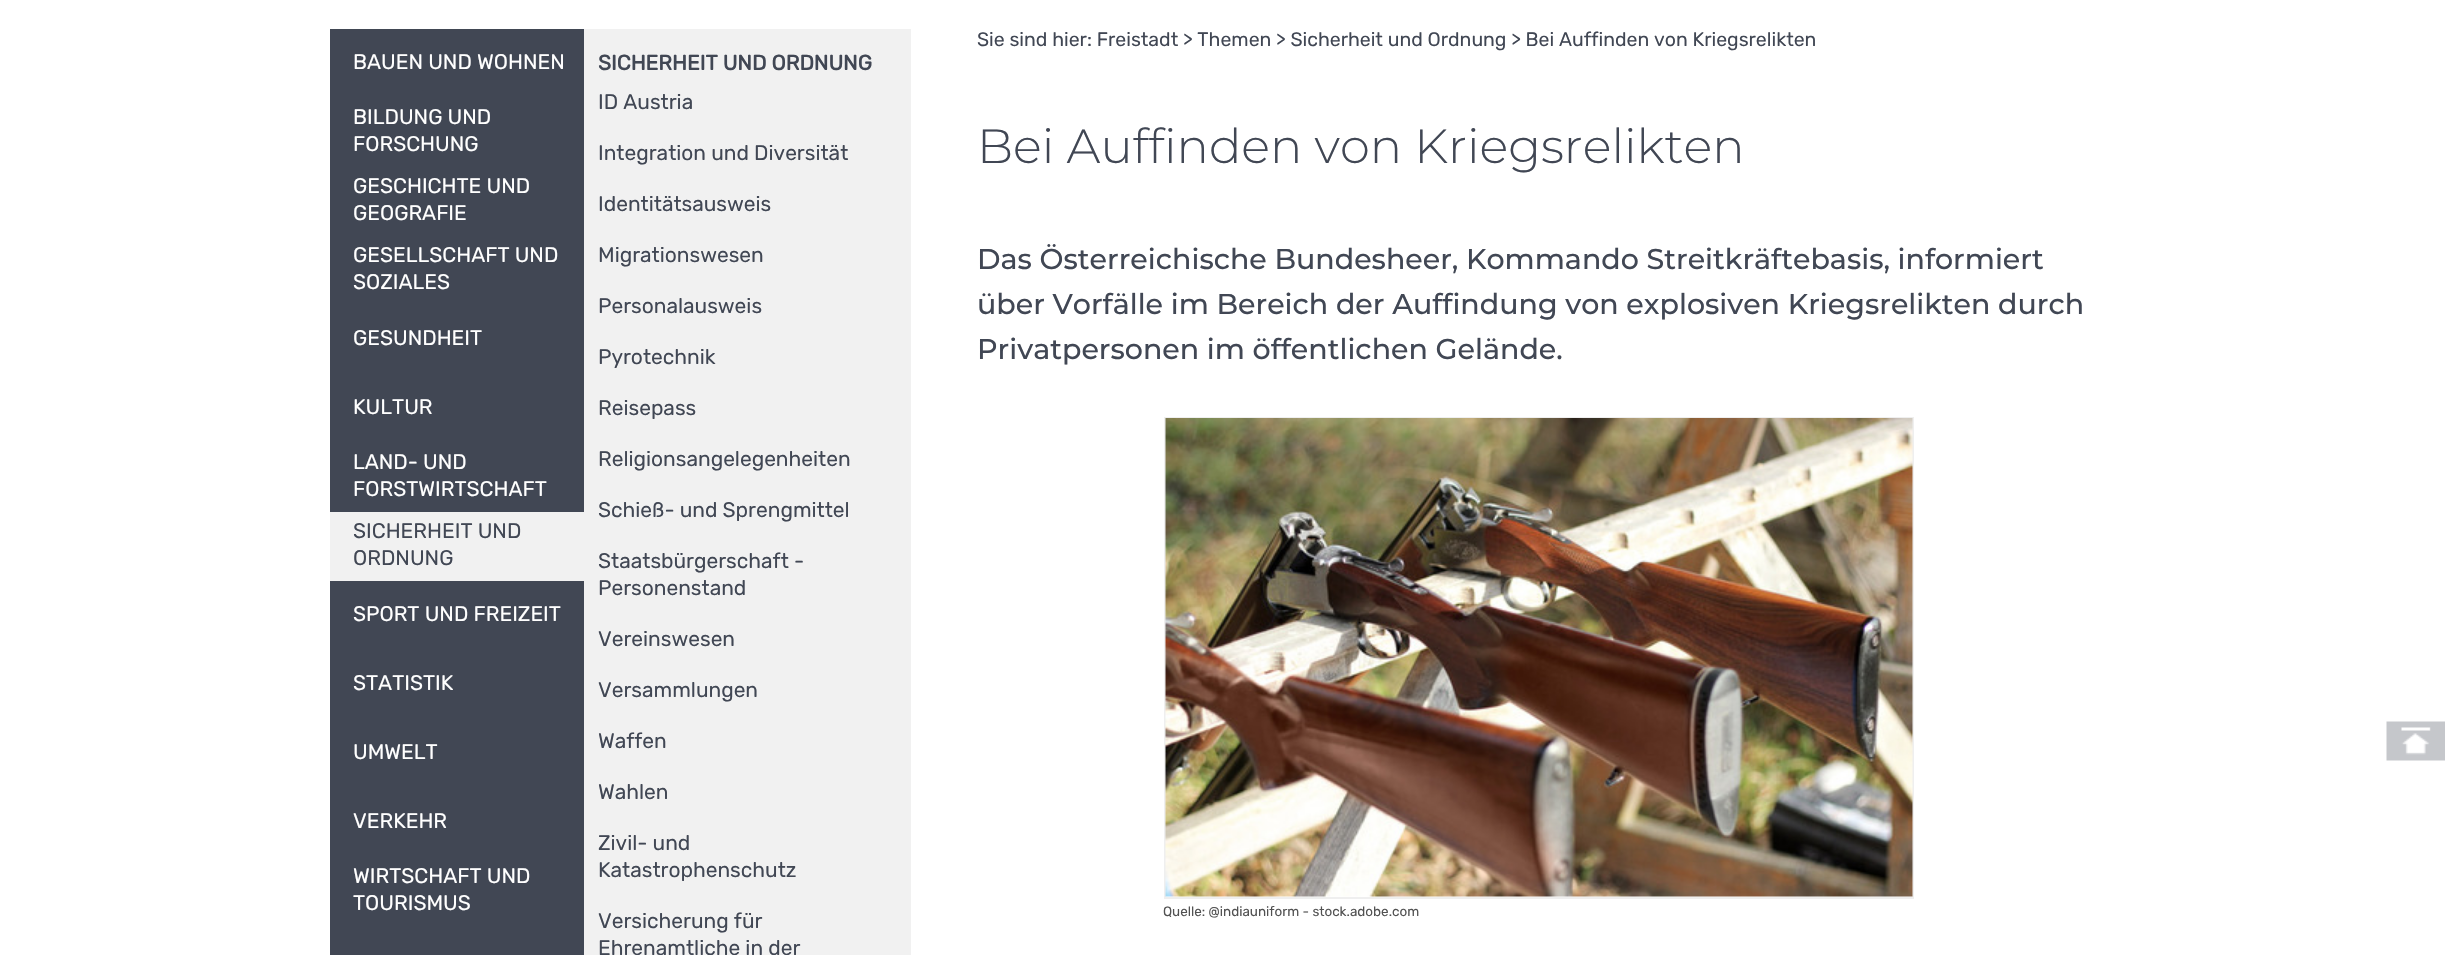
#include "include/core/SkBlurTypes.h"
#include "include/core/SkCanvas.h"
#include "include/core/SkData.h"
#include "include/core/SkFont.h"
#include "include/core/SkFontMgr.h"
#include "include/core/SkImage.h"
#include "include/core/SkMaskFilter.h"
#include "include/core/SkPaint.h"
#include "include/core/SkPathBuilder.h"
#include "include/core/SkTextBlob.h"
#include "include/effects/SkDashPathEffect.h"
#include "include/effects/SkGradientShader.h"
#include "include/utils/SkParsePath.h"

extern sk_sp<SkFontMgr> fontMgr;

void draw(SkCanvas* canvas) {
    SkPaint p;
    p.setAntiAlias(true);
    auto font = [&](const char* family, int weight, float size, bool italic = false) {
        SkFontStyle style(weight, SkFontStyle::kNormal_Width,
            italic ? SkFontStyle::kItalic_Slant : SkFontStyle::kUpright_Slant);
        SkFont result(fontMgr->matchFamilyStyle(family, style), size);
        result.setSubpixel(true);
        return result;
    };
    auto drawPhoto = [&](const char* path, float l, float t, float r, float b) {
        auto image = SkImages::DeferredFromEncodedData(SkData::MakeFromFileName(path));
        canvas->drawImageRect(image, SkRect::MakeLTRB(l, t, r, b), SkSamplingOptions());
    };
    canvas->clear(0xFFFFFFFF);
    p.setColor(0xFF414754);
    canvas->drawRect(SkRect::MakeLTRB(330, 29, 584, 955), p);
    p.setColor(0xFFF1F1F1);
    canvas->drawRect(SkRect::MakeLTRB(584, 29, 911, 955), p);
    auto font1 = font("Rubik", 400, 19.5f);
    p.setColor(0xFF414754);
    canvas->drawString("Sie sind hier: Freistadt > Themen > Sicherheit und Ordnung > Bei Auffinden von Kriegsrelikten", 977, 46, font1, p);
    auto font2 = font("Montserrat", 300, 48);
    canvas->drawString("Bei Auffinden von Kriegsrelikten", 977, 163, font2, p);
    auto font3 = font("Montserrat", 500, 28.5f);
    {
        const struct { const char* s; float x, y; } items[] = {
            {"Das Österreichische Bundesheer, Kommando Streitkräftebasis, informiert", 977, 269},
            {"über Vorfälle im Bereich der Auffindung von explosiven Kriegsrelikten durch", 977, 314},
            {"Privatpersonen im öffentlichen Gelände.", 977, 359},
        };
        for (auto [s, x, y] : items) {
            canvas->drawString(s, x, y, font3, p);
        }
    }
    p.setStyle(SkPaint::kStroke_Style);
    p.setStrokeWidth(2);
    p.setColor(0xFFEFEFEF);
    canvas->drawRect(SkRect::MakeLTRB(1165, 418, 1913, 898), p);
    drawPhoto("media/1.png", 1165, 418, 1913, 897);
    auto font4 = font("Rubik", 400, 13.5f);
    p.setStyle(SkPaint::kFill_Style);
    p.setColor(0xFF515151);
    canvas->drawString("Quelle: @indiauniform - stock.adobe.com", 1163, 916, font4, p);
    auto font5 = font("Rubik", 400, 21);
    p.setColor(0xFFFFFFFF);
    canvas->drawString("BAUEN UND WOHNEN", 353, 69, font5, p);
    p.setColor(0xFFF1F1F1);
    canvas->drawRect(SkRect::MakeLTRB(330, 512, 584, 581), p);
    p.setColor(0xFF414754);
    canvas->drawString("SICHERHEIT UND", 353, 538, font5, p);
    canvas->drawString("ORDNUNG", 353, 565, font5, p);
    auto font6 = font("Rubik", 700, 21);
    canvas->drawString("SICHERHEIT UND ORDNUNG", 598, 70, font6, p);
    {
        const struct { const char* s; float x, y; } items[] = {
            {"ID Austria", 598, 109},
            {"Integration und Diversität", 598, 160},
            {"Identitätsausweis", 598, 211},
            {"Migrationswesen", 598, 262},
            {"Personalausweis", 598, 313},
            {"Pyrotechnik", 598, 364},
            {"Reisepass", 598, 415},
            {"Religionsangelegenheiten", 598, 466},
            {"Schieß- und Sprengmittel", 598, 517},
            {"Staatsbürgerschaft -", 598, 568},
            {"Personenstand", 598, 595},
            {"Vereinswesen", 598, 646},
            {"Versammlungen", 598, 697},
            {"Waffen", 598, 748},
            {"Wahlen", 598, 799},
            {"Zivil- und", 598, 850},
            {"Katastrophenschutz", 598, 877},
            {"Versicherung für", 598, 928},
            {"Ehrenamtliche in der", 598, 955},
        };
        for (auto [s, x, y] : items) {
            canvas->drawString(s, x, y, font5, p);
        }
    }
    p.setColor(0xFFFFFFFF);
    {
        const struct { const char* s; float x, y; } items[] = {
            {"BILDUNG UND", 353, 124},
            {"FORSCHUNG", 353, 151},
            {"GESCHICHTE UND", 353, 193},
            {"GEOGRAFIE", 353, 220},
            {"GESELLSCHAFT UND", 353, 262},
            {"SOZIALES", 353, 289},
            {"GESUNDHEIT", 353, 345},
            {"KULTUR", 353, 414},
            {"LAND- UND", 353, 469},
            {"FORSTWIRTSCHAFT", 353, 496},
            {"SPORT UND FREIZEIT", 353, 621},
            {"STATISTIK", 353, 690},
            {"UMWELT", 353, 759},
            {"VERKEHR", 353, 828},
            {"WIRTSCHAFT UND", 353, 883},
            {"TOURISMUS", 353, 910},
        };
        for (auto [s, x, y] : items) {
            canvas->drawString(s, x, y, font5, p);
        }
    }
    drawPhoto("media/2.png", 2386, 721, 2445, 761);
}
